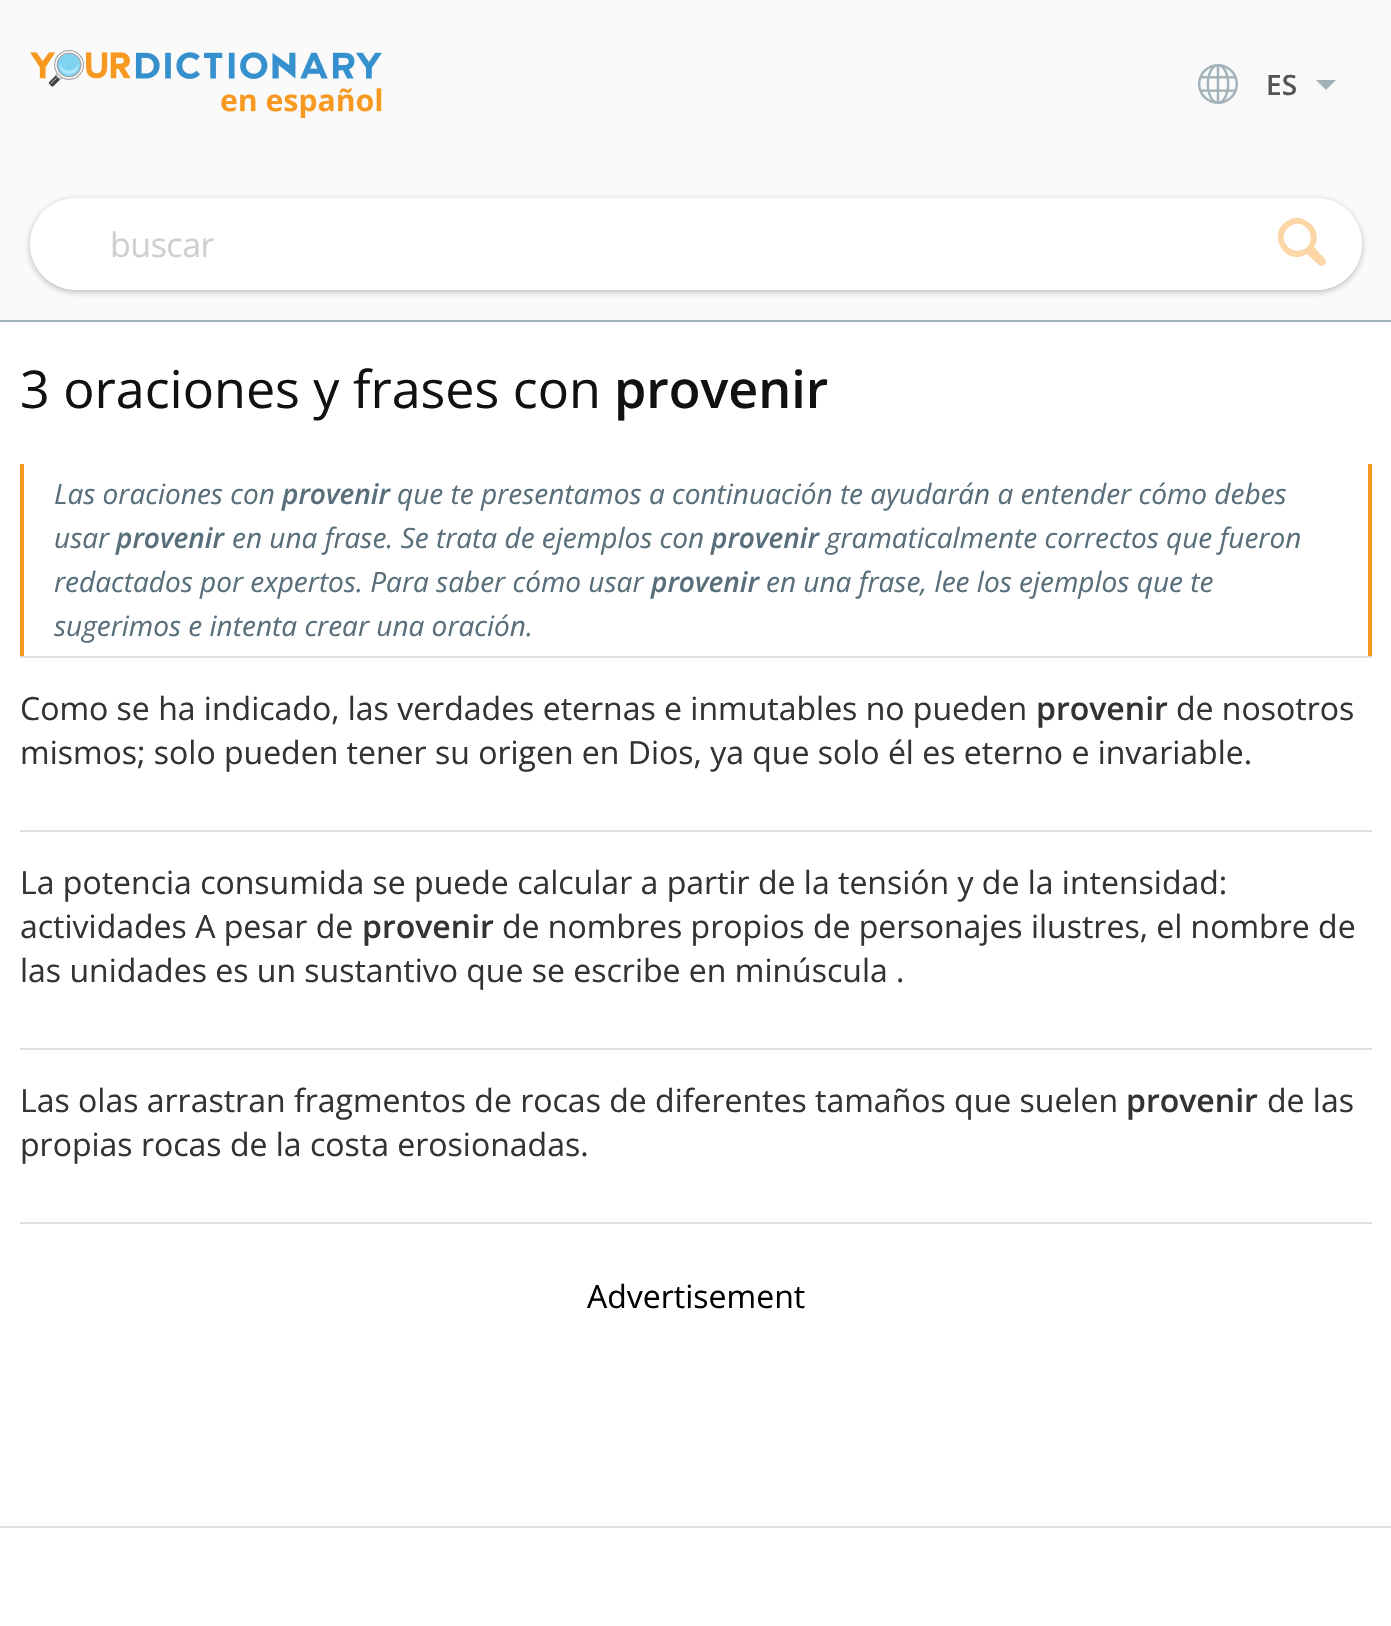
#include "include/core/SkBlurTypes.h"
#include "include/core/SkCanvas.h"
#include "include/core/SkData.h"
#include "include/core/SkFont.h"
#include "include/core/SkFontMgr.h"
#include "include/core/SkImage.h"
#include "include/core/SkMaskFilter.h"
#include "include/core/SkPaint.h"
#include "include/core/SkPathBuilder.h"
#include "include/core/SkTextBlob.h"
#include "include/effects/SkDashPathEffect.h"
#include "include/effects/SkGradientShader.h"
#include "include/utils/SkParsePath.h"

extern sk_sp<SkFontMgr> fontMgr;

void draw(SkCanvas* canvas) {
    SkPaint p;
    p.setAntiAlias(true);
    auto font = [&](const char* family, int weight, float size, bool italic = false) {
        SkFontStyle style(weight, SkFontStyle::kNormal_Width,
            italic ? SkFontStyle::kItalic_Slant : SkFontStyle::kUpright_Slant);
        SkFont result(fontMgr->matchFamilyStyle(family, style), size);
        result.setSubpixel(true);
        return result;
    };
    auto drawTracked = [&](const char* s, float x, float y, const SkFont& font, const SkPaint& ink, float letter, float word) {
        std::vector<SkGlyphID> glyphs(font.countText(s, strlen(s), SkTextEncoding::kUTF8));
        std::vector<float> xs(glyphs.size());
        font.textToGlyphs(s, strlen(s), SkTextEncoding::kUTF8, glyphs);
        font.getXPos(glyphs, xs, x);
        float extra = 0;
        for (size_t i = 0; i < glyphs.size(); i++) {
            xs[i] += extra;
            extra += letter + word * (glyphs[i] == font.unicharToGlyph(' '));
        }
        canvas->drawTextBlob(SkTextBlob::MakeFromPosHGlyphs(glyphs, xs, y, font), 0, 0, ink);
    };
    auto drawPhoto = [&](const char* path, float l, float t, float r, float b) {
        auto image = SkImages::DeferredFromEncodedData(SkData::MakeFromFileName(path));
        canvas->drawImageRect(image, SkRect::MakeLTRB(l, t, r, b), SkSamplingOptions());
    };
    canvas->clear(0xFFFFFFFF);
    p.setColor(0xFFFAFAFA);
    canvas->drawRect(SkRect::MakeLTRB(0, 0, 1391, 320), p);
    p.setColor(0xFFA3B2BA);
    canvas->drawRect(SkRect::MakeLTRB(0, 320, 1391, 322), p);
    drawPhoto("media/1.png", 30, 50, 382, 118);
    drawPhoto("media/2.png", 1198, 64, 1238, 104);
    auto font1 = font("Open Sans", 600, 28);
    p.setColor(0xFF555555);
    canvas->drawString("ES", 1266, 95, font1, p);
    p.setColor(0xFFA3B2BA);
    canvas->drawPath(SkPathBuilder().moveTo(1316, 80).lineTo(1336, 80).lineTo(1326, 90).close().detach(), p);
    p.setColor(0x4D222222);
    p.setMaskFilter(SkMaskFilter::MakeBlur(kNormal_SkBlurStyle, 3));
    canvas->drawRoundRect(SkRect::MakeLTRB(30, 200, 1362, 292), 46, 46, p);
    p.setMaskFilter(nullptr);
    p.setColor(0xFFFFFFFF);
    canvas->drawRoundRect(SkRect::MakeLTRB(30, 198, 1362, 290), 46, 46, p);
    auto font2 = font("Open Sans", 400, 34);
    p.setColor(0xFFCFCFCF);
    drawTracked("buscar", 110, 257, font2, p, -0.5f, 0);
    p.setColor(0xFFFFFFFF);
    canvas->drawPath(SkPathBuilder().moveTo(1242, 198).lineTo(1316, 198).cubicTo(1341.5f, 198, 1362, 218.5f, 1362, 244).cubicTo(1362, 269.5f, 1341.5f, 290, 1316, 290).lineTo(1242, 290).close().detach(), p);
    p.setColor(0xFFFCD6A6);
    canvas->drawPath(SkPathBuilder().moveTo(1314, 247).cubicTo(1320, 238, 1316, 225, 1305, 220).cubicTo(1300, 217, 1294, 217, 1289, 220).cubicTo(1265, 231, 1284, 268, 1307, 254).lineTo(1319, 265).cubicTo(1321, 266, 1323, 266, 1324, 265).cubicTo(1329, 262, 1323, 256, 1320, 254).close().moveTo(1307, 247).cubicTo(1294, 259, 1275, 240, 1288, 228).cubicTo(1300, 215, 1319, 234, 1307, 247).close().detach(), p);
    auto font3 = font("Open Sans", 400, 52);
    p.setColor(0xFF111111);
    canvas->drawString("3 oraciones y frases con", 20, 408, font3, p);
    auto font4 = font("Open Sans", 600, 52);
    canvas->drawString("provenir", 614, 408, font4, p);
    p.setColor(0xFFF79820);
    canvas->drawRect(SkRect::MakeLTRB(1368, 464, 1372, 656), p);
    canvas->drawRect(SkRect::MakeLTRB(20, 464, 24, 656), p);
    auto font5 = font("Open Sans", 400, 28, true);
    p.setColor(0xFF586E7A);
    canvas->drawString("Las oraciones con", 54, 504, font5, p);
    auto font6 = font("Open Sans", 600, 28, true);
    canvas->drawString("provenir", 282, 504, font6, p);
    canvas->drawString("que te presentamos a continuación te ayudarán a entender cómo debes", 397, 504, font5, p);
    canvas->drawString("usar", 54, 548, font5, p);
    canvas->drawString("provenir", 116, 548, font6, p);
    canvas->drawString("en una frase. Se trata de ejemplos con", 232, 548, font5, p);
    canvas->drawString("provenir", 711, 548, font6, p);
    canvas->drawString("gramaticalmente correctos que fueron", 826, 548, font5, p);
    canvas->drawString("redactados por expertos. Para saber cómo usar", 54, 592, font5, p);
    canvas->drawString("provenir", 651, 592, font6, p);
    canvas->drawString("en una frase, lee los ejemplos que te", 766, 592, font5, p);
    canvas->drawString("sugerimos e intenta crear una oración.", 54, 636, font5, p);
    p.setColor(0xFFDAE2E6);
    canvas->drawRect(SkRect::MakeLTRB(20, 656, 1372, 658), p);
    canvas->drawRect(SkRect::MakeLTRB(20, 830, 1372, 832), p);
    auto font7 = font("Open Sans", 400, 32);
    p.setColor(0xFF333333);
    canvas->drawString("Como se ha indicado, las verdades eternas e inmutables no pueden", 20, 720, font7, p);
    auto font8 = font("Open Sans", 600, 32);
    canvas->drawString("provenir", 1036, 720, font8, p);
    canvas->drawString("de nosotros", 1176, 720, font7, p);
    canvas->drawString("mismos; solo pueden tener su origen en Dios, ya que solo él es eterno e invariable.", 20, 764, font7, p);
    p.setColor(0xFFDAE2E6);
    canvas->drawRect(SkRect::MakeLTRB(20, 1048, 1372, 1050), p);
    p.setColor(0xFF333333);
    canvas->drawString("La potencia consumida se puede calcular a partir de la tensión y de la intensidad:", 20, 894, font7, p);
    canvas->drawString("actividades A pesar de", 20, 938, font7, p);
    canvas->drawString("provenir", 362, 938, font8, p);
    canvas->drawString("de nombres propios de personajes ilustres, el nombre de", 502, 938, font7, p);
    canvas->drawString("las unidades es un sustantivo que se escribe en minúscula .", 20, 982, font7, p);
    p.setColor(0xFFDAE2E6);
    canvas->drawRect(SkRect::MakeLTRB(20, 1222, 1372, 1224), p);
    p.setColor(0xFF333333);
    canvas->drawString("Las olas arrastran fragmentos de rocas de diferentes tamaños que suelen", 20, 1112, font7, p);
    canvas->drawString("provenir", 1126, 1112, font8, p);
    canvas->drawString("de las", 1267, 1112, font7, p);
    canvas->drawString("propias rocas de la costa erosionadas.", 20, 1156, font7, p);
    p.setColor(0xFF000000);
    canvas->drawString("Advertisement", 587, 1308, font7, p);
    p.setColor(0xFFDAE0E3);
    canvas->drawRect(SkRect::MakeLTRB(0, 1526, 1391, 1528), p);
}
